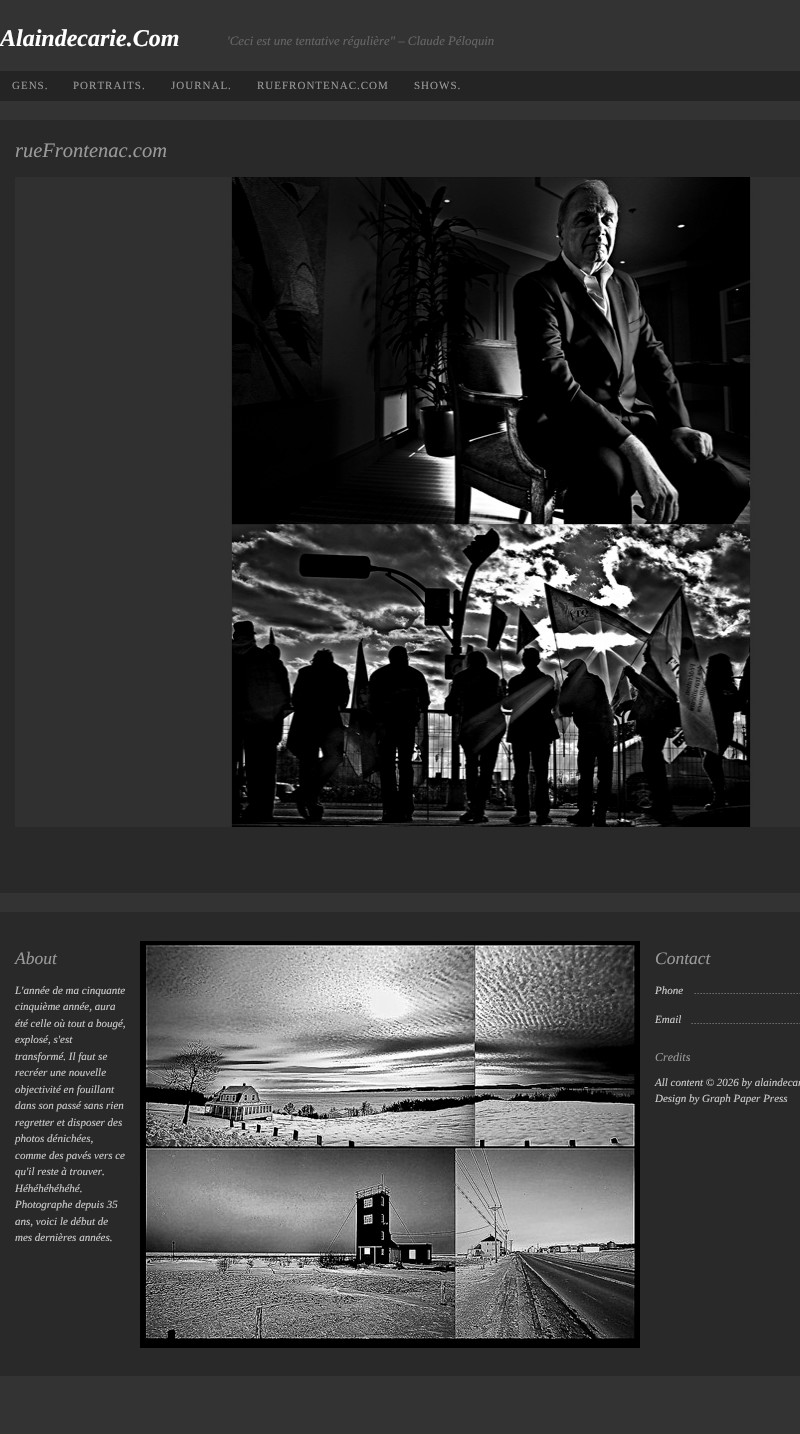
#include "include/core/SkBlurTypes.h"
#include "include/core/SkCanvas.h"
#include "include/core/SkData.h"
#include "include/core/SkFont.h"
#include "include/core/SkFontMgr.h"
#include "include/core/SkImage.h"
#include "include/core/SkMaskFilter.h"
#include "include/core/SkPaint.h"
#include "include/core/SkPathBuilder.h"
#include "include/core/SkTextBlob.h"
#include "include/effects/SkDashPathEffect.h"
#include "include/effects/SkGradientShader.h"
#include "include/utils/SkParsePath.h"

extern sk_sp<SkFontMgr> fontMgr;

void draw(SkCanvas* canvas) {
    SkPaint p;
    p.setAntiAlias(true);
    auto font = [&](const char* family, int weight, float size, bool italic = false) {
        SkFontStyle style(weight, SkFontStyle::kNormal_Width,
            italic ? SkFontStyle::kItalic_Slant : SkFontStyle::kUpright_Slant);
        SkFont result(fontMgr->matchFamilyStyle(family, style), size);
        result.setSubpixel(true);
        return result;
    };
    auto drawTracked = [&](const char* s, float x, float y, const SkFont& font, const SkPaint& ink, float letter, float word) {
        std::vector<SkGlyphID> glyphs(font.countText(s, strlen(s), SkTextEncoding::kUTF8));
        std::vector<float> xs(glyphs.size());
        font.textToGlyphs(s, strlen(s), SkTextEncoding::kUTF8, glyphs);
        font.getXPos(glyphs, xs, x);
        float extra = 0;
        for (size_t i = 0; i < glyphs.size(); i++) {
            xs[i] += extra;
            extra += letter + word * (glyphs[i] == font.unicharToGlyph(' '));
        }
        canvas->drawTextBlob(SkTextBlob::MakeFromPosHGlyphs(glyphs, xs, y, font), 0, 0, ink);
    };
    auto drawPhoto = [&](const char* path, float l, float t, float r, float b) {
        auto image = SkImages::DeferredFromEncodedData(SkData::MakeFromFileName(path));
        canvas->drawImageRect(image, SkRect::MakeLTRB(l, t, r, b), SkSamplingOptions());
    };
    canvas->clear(0xFF333333);
    auto font1 = font("Liberation Serif", 700, 24, true);
    p.setColor(0xFFFFFFFF);
    canvas->drawString("Alaindecarie.Com", 0, 46, font1, p);
    auto font2 = font("Liberation Serif", 400, 12.8f, true);
    p.setColor(0xFF666666);
    canvas->drawString("'Ceci est une tentative régulière\" – Claude Péloquin", 227, 45, font2, p);
    p.setColor(0xFF242424);
    canvas->drawRect(SkRect::MakeLTRB(0, 71, 800, 101), p);
    auto font3 = font("Liberation Serif", 400, 11);
    p.setColor(0xFF999999);
    {
        const struct { const char* s; float x, y; } items[] = {
            {"GENS.", 12, 89},
            {"PORTRAITS.", 73, 89},
            {"JOURNAL.", 171, 89},
            {"RUEFRONTENAC.COM", 257, 89},
            {"SHOWS.", 414, 89},
        };
        for (auto [s, x, y] : items) {
            drawTracked(s, x, y, font3, p, 1, 0);
        }
    }
    p.setColor(0xFF292929);
    canvas->drawRect(SkRect::MakeLTRB(0, 120, 800, 893), p);
    auto font4 = font("Liberation Serif", 400, 20.5f, true);
    p.setColor(0xFF999999);
    canvas->drawString("rueFrontenac.com", 15, 157, font4, p);
    drawPhoto("media/1.png", 15, 177, 800, 827);
    p.setColor(0xFF292929);
    canvas->drawRect(SkRect::MakeLTRB(0, 912, 800, 1376), p);
    auto font5 = font("Liberation Serif", 400, 17.5f, true);
    p.setColor(0xFF999999);
    canvas->drawString("About", 15, 964, font5, p);
    drawPhoto("media/2.png", 140, 941, 640, 1348);
    auto font6 = font("Liberation Serif", 400, 11, true);
    p.setColor(0xFFCCCCCC);
    {
        const struct { const char* s; float x, y; } items[] = {
            {"L'année de ma cinquante", 15, 994},
            {"cinquième année, aura", 15, 1010},
            {"été celle où tout a bougé,", 15, 1027},
            {"explosé, s'est", 15, 1043},
            {"transformé. Il faut se", 15, 1060},
            {"recréer une nouvelle", 15, 1076},
            {"objectivité en fouillant", 15, 1093},
            {"dans son passé sans rien", 15, 1109},
            {"regretter et disposer des", 15, 1126},
            {"photos dénichées,", 15, 1142},
            {"comme des pavés vers ce", 15, 1159},
            {"qu'il reste à trouver.", 15, 1175},
            {"Héhéhéhéhéhé.", 15, 1192},
            {"Photographe depuis 35", 15, 1208},
            {"ans, voici le début de", 15, 1225},
            {"mes dernières années.", 15, 1241},
        };
        for (auto [s, x, y] : items) {
            canvas->drawString(s, x, y, font6, p);
        }
    }
    p.setColor(0xFF999999);
    canvas->drawString("Contact", 655, 964, font5, p);
    drawPhoto("media/3.png", 694, 993, 800, 994);
    p.setColor(0xFFCCCCCC);
    canvas->drawString("Phone", 655, 994, font6, p);
    drawPhoto("media/4.png", 691, 1023, 800, 1024);
    canvas->drawString("Email", 655, 1023, font6, p);
    auto font7 = font("Liberation Serif", 400, 12, true);
    p.setColor(0xFF999999);
    canvas->drawString("Credits", 655, 1061, font7, p);
    p.setColor(0xFFCCCCCC);
    canvas->drawString("All content © 2026 by alaindecar", 655, 1086, font6, p);
    canvas->drawString("Design by Graph Paper Press", 655, 1102, font6, p);
}
